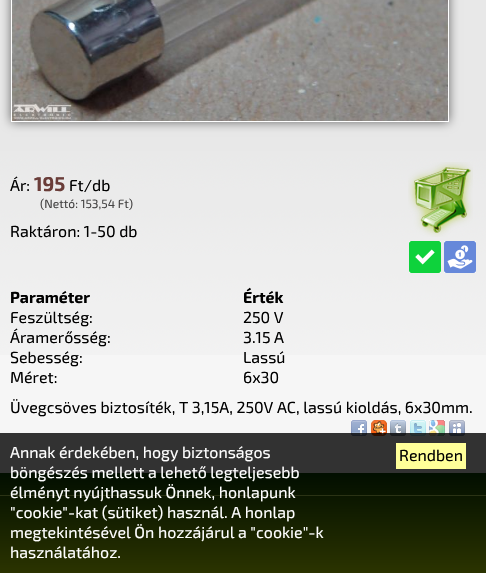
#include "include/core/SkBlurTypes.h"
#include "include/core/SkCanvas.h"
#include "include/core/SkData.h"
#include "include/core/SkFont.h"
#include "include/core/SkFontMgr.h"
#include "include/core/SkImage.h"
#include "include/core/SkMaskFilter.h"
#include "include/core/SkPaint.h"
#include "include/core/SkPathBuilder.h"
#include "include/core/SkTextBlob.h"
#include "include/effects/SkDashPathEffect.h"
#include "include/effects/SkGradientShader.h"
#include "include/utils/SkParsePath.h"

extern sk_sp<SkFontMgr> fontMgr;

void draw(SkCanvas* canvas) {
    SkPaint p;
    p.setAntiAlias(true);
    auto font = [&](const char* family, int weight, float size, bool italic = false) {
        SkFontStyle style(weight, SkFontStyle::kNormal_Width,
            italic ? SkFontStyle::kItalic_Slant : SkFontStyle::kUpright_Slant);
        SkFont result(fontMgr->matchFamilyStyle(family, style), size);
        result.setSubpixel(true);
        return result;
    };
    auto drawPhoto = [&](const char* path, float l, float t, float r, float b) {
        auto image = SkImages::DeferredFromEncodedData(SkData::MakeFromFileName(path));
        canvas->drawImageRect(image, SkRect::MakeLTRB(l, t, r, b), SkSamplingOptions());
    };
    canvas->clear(0xFFF6F6F6);
    drawPhoto("media/1.png", 0, 0, 486, 355);
    p.setColor(0xFF666666);
    p.setMaskFilter(SkMaskFilter::MakeBlur(kNormal_SkBlurStyle, 5));
    canvas->drawRect(SkRect::MakeLTRB(11, -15, 449, 122), p);
    p.setMaskFilter(nullptr);
    p.setStyle(SkPaint::kStroke_Style);
    p.setStrokeWidth(1);
    p.setColor(0xFFFFFFFF);
    canvas->drawRect(SkRect::MakeLTRB(11.5f, -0.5f, 448.5f, 121.5f), p);
    drawPhoto("media/2.png", 12, 0, 448, 121);
    auto font1 = font("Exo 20", 400, 16);
    p.setStyle(SkPaint::kFill_Style);
    p.setColor(0xFF000000);
    canvas->drawString("Ár:", 10, 191, font1, p);
    auto font2 = font("Exo 20", 700, 20);
    p.setColor(0xFF6A3D39);
    canvas->drawString("195", 34, 191, font2, p);
    p.setColor(0xFF000000);
    canvas->drawString("Ft/db", 69, 191, font1, p);
    auto font3 = font("Exo 20", 400, 12);
    p.setColor(0xFF444343);
    canvas->drawString("(Nettó: 153,54 Ft)", 40, 208, font3, p);
    p.setColor(0xFF000000);
    canvas->drawString("Raktáron: 1-50 db", 10, 237, font1, p);
    drawPhoto("media/3.png", 408, 162, 473, 237);
    drawPhoto("media/4.png", 409, 241, 441, 273);
    drawPhoto("media/5.png", 444, 241, 476, 273);
    auto font4 = font("Exo 20", 700, 16);
    canvas->drawString("Paraméter", 10, 303, font4, p);
    canvas->drawString("Érték", 243, 303, font4, p);
    {
        const struct { const char* s; float x, y; } items[] = {
            {"Feszültség:", 10, 323},
            {"250 V", 243, 323},
            {"Áramerősség:", 10, 343},
            {"3.15 A", 243, 343},
            {"Sebesség:", 10, 363},
            {"Lassú", 243, 363},
            {"Méret:", 10, 383},
            {"6x30", 243, 383},
            {"Üvegcsöves biztosíték, T 3,15A, 250V AC, lassú kioldás, 6x30mm.", 10, 413},
        };
        for (auto [s, x, y] : items) {
            canvas->drawString(s, x, y, font1, p);
        }
    }
    drawPhoto("media/6.png", 351, 420, 367, 436);
    drawPhoto("media/7.png", 371, 420, 387, 436);
    drawPhoto("media/8.png", 390, 420, 406, 436);
    drawPhoto("media/9.png", 410, 420, 426, 436);
    drawPhoto("media/10.png", 429, 420, 445, 436);
    drawPhoto("media/11.png", 449, 420, 465, 436);
    {
        const SkColor colors[] = {0xFF054400, 0xFFD4FF00};
        const float stops[] = {0, 1};
        const SkPoint ends[] = {{243, 473}, {243, 573}};
        p.setShader(SkGradientShader::MakeLinear(ends, colors, stops, 2, SkTileMode::kClamp));
        p.setAlpha(255);
    }
    canvas->drawRect(SkRect::MakeLTRB(0, 473, 486, 573), p);
    p.setShader(nullptr);
    p.setColor(0xFFD4FF66);
    canvas->drawRect(SkRect::MakeLTRB(0, 495, 486, 496), p);
    p.setColor(0xCC000000);
    canvas->drawRect(SkRect::MakeLTRB(0, 433, 486, 573), p);
    p.setColor(0xFFFFFFFF);
    {
        const struct { const char* s; float x, y; } items[] = {
            {"Annak érdekében, hogy biztonságos", 10, 458},
            {"böngészés mellett a lehető legteljesebb", 10, 478},
            {"élményt nyújthassuk Önnek, honlapunk", 10, 498},
            {"\"cookie\"-kat (sütiket) használ. A honlap", 10, 518},
            {"megtekintésével Ön hozzájárul a \"cookie\"-k", 10, 538},
            {"használatához.", 10, 558},
        };
        for (auto [s, x, y] : items) {
            canvas->drawString(s, x, y, font1, p);
        }
    }
    p.setColor(0xFFFFFF99);
    canvas->drawRect(SkRect::MakeLTRB(396, 443, 466, 469), p);
    p.setColor(0xFF000000);
    canvas->drawString("Rendben", 399, 461, font1, p);
}
